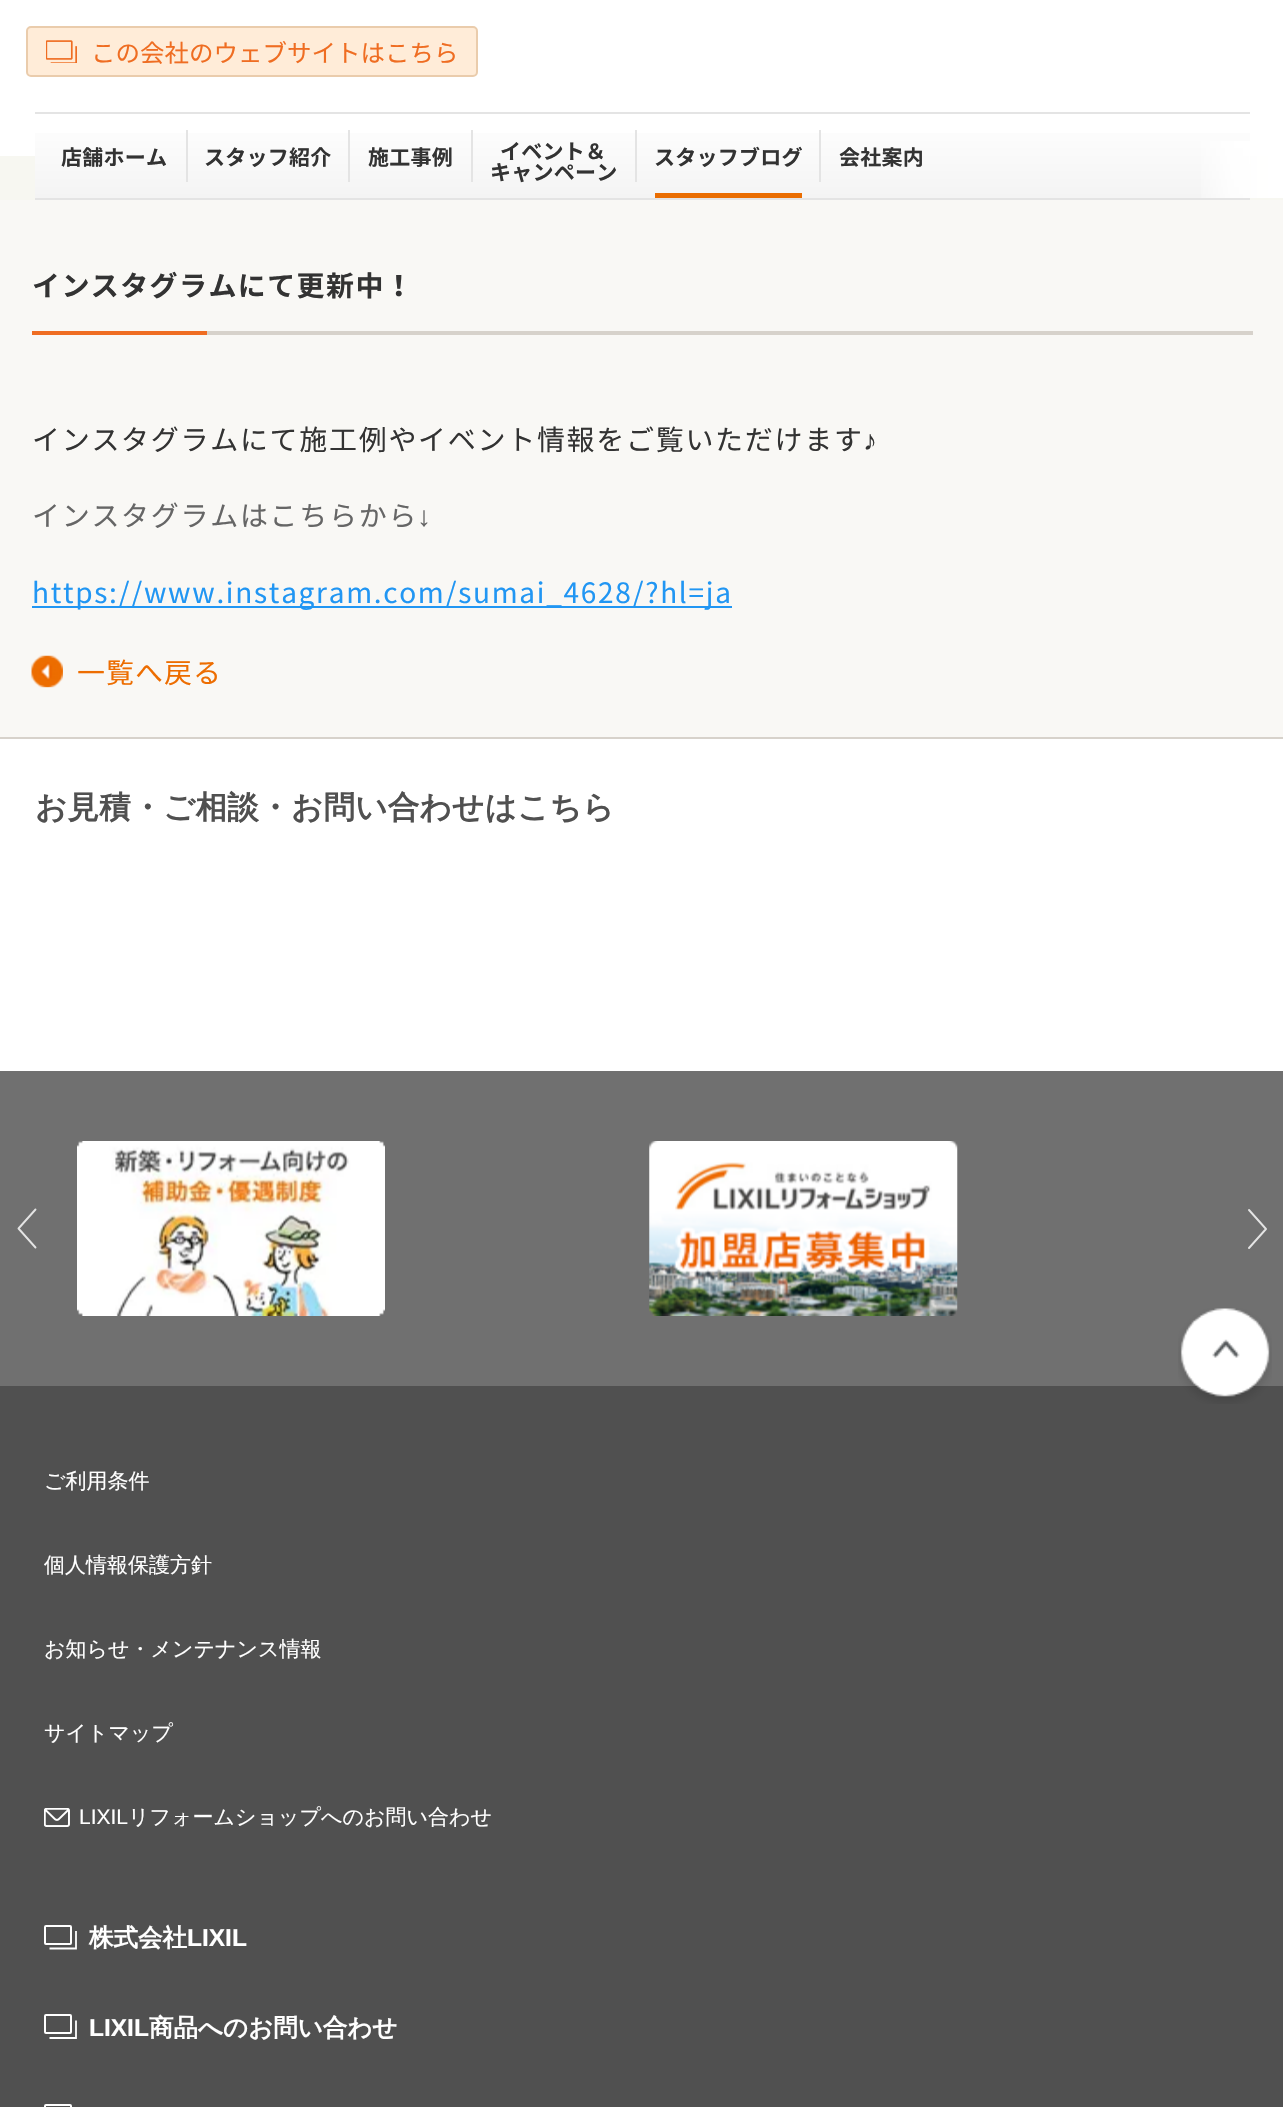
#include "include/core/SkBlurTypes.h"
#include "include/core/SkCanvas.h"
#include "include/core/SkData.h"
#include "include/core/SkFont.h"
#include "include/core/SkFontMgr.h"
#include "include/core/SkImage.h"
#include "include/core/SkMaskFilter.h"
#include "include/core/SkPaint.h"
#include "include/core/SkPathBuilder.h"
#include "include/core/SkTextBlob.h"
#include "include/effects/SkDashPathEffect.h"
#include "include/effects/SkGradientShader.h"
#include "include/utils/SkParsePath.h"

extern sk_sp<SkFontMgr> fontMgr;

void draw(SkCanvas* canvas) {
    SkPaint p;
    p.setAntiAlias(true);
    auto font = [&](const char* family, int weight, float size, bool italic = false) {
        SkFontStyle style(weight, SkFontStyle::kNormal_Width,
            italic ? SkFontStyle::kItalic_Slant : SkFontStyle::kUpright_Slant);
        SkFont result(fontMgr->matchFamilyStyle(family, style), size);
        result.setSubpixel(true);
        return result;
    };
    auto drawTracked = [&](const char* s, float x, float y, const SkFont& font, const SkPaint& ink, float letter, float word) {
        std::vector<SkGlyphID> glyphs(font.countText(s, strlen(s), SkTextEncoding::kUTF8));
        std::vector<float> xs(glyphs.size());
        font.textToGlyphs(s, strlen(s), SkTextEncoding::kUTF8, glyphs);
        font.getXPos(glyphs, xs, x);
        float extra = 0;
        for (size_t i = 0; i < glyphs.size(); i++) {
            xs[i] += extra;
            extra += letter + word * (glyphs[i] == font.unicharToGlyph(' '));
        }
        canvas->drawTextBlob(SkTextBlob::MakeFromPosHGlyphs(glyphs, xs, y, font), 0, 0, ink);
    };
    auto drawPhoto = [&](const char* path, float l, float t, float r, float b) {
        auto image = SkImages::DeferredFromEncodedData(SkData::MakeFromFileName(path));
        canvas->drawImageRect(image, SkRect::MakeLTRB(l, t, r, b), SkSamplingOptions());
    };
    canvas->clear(0xFFFFFFFF);
    p.setColor(0xFFFFECD8);
    canvas->drawRoundRect(SkRect::MakeLTRB(27, 27, 477, 76), 4, 4, p);
    p.setStyle(SkPaint::kStroke_Style);
    p.setStrokeWidth(2);
    p.setColor(0xFFEACCAC);
    canvas->drawRoundRect(SkRect::MakeLTRB(27, 27, 477, 76), 4, 4, p);
    drawPhoto("media/1.png", 46, 40, 77, 63);
    auto font1 = font("Noto Sans JP", 400, 24.5f);
    p.setStyle(SkPaint::kFill_Style);
    p.setColor(0xFFEF6D22);
    canvas->drawString("この会社のウェブサイトはこちら", 91, 62, font1, p);
    p.setColor(0xFFF7F7F1);
    canvas->drawRect(SkRect::MakeLTRB(0, 156, 1283, 200), p);
    {
        const SkColor colors[] = {0xFFFFFFFF, 0xFFF4F4F4};
        const float stops[] = {0, 1};
        const SkPoint ends[] = {{642, 114}, {642, 198}};
        p.setShader(SkGradientShader::MakeLinear(ends, colors, stops, 2, SkTileMode::kClamp));
        p.setAlpha(255);
    }
    canvas->drawRect(SkRect::MakeLTRB(35, 133, 1250, 198), p);
    p.setShader(nullptr);
    p.setColor(0xFFE4E4E4);
    canvas->drawRect(SkRect::MakeLTRB(35, 112, 1250, 114), p);
    canvas->drawRect(SkRect::MakeLTRB(35, 198, 1250, 200), p);
    auto font2 = font("Noto Sans JP", 700, 21);
    p.setColor(0xFF333333);
    drawTracked("店舗ホーム", 61, 165, font2, p, 0.25f, 0);
    p.setColor(0xFFE4E4E4);
    canvas->drawRect(SkRect::MakeLTRB(186, 130, 188, 182), p);
    p.setColor(0xFF333333);
    drawTracked("スタッフ紹介", 204, 165, font2, p, 0.25f, 0);
    p.setColor(0xFFE4E4E4);
    canvas->drawRect(SkRect::MakeLTRB(348, 130, 350, 182), p);
    p.setColor(0xFF333333);
    drawTracked("施工事例", 368, 165, font2, p, 0.25f, 0);
    p.setColor(0xFFE4E4E4);
    canvas->drawRect(SkRect::MakeLTRB(471, 130, 473, 182), p);
    p.setColor(0xFF333333);
    drawTracked("イベント＆", 500, 159, font2, p, 0.25f, 0);
    drawTracked("キャンペーン", 490, 180, font2, p, 0.25f, 0);
    p.setColor(0xFFE4E4E4);
    canvas->drawRect(SkRect::MakeLTRB(635, 130, 637, 182), p);
    p.setColor(0xFF333333);
    drawTracked("スタッフブログ", 654, 165, font2, p, 0.25f, 0);
    p.setColor(0xFFEA6D01);
    canvas->drawRect(SkRect::MakeLTRB(655, 193, 802, 198), p);
    p.setColor(0xFFE4E4E4);
    canvas->drawRect(SkRect::MakeLTRB(819, 130, 821, 182), p);
    p.setColor(0xFF333333);
    drawTracked("会社案内", 839, 165, font2, p, 0.25f, 0);
    {
        const SkColor colors[] = {0xFFFFFFFF, 0xC9FFFFFF, 0x00FFFFFF};
        const float stops[] = {0, 0.55f, 1};
        const SkPoint ends[] = {{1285, 156}, {1188, 156}};
        p.setShader(SkGradientShader::MakeLinear(ends, colors, stops, 3, SkTileMode::kClamp));
        p.setAlpha(255);
    }
    canvas->drawRect(SkRect::MakeLTRB(1201, 141, 1283, 198), p);
    p.setShader(nullptr);
    p.setColor(0xFFF9F8F5);
    canvas->drawRect(SkRect::MakeLTRB(0, 200, 1283, 737), p);
    p.setColor(0xFFD7D2CB);
    canvas->drawRect(SkRect::MakeLTRB(207, 331, 1253, 335), p);
    auto font3 = font("Noto Sans JP", 700, 28);
    p.setColor(0xFF333333);
    drawTracked("インスタグラムにて更新中！", 32, 296, font3, p, 1.4f, 0);
    p.setColor(0xFFEF6D22);
    canvas->drawRect(SkRect::MakeLTRB(32, 331, 207, 335), p);
    auto font4 = font("Noto Sans JP", 400, 28);
    p.setColor(0xFF333333);
    drawTracked("インスタグラムにて施工例やイベント情報をご覧いただけます", 32, 450, font4, p, 1.7f, 0);
    auto font5 = font("Liberation Sans", 400, 28);
    drawTracked("♪", 863, 450, font5, p, 1.7f, 0);
    p.setColor(0xFF666666);
    drawTracked("インスタグラムはこちらから", 32, 526, font4, p, 1.7f, 0);
    drawTracked("↓", 417, 526, font5, p, 1.7f, 0);
    p.setColor(0xFF2196F3);
    canvas->drawRect(SkRect::MakeLTRB(32, 606, 732, 608), p);
    drawTracked("https://www.instagram.com/sumai_4628/?hl=ja", 32, 603, font4, p, 1.7f, 0);
    drawPhoto("media/2.png", 31, 655, 63, 688);
    p.setColor(0xFFED6D01);
    drawTracked("一覧へ戻る", 77, 683, font4, p, 1, 0);
    p.setColor(0xFFD7D2CB);
    canvas->drawRect(SkRect::MakeLTRB(0, 737, 1283, 739), p);
    auto font6 = font("WenQuanYi Zen Hei", 700, 31.5f);
    p.setColor(0xFF505050);
    drawTracked("お見積・ご相談・お問い合わせはこちら", 35, 818, font6, p, 0.3f, 0);
    p.setColor(0xFF707070);
    canvas->drawRect(SkRect::MakeLTRB(0, 1071, 1283, 1386), p);
    p.setStyle(SkPaint::kStroke_Style);
    p.setStrokeWidth(1.9f);
    p.setStrokeCap(SkPaint::kRound_Cap);
    p.setStrokeJoin(SkPaint::kRound_Join);
    p.setColor(0xFFE4E4E4);
    canvas->drawPath(SkPathBuilder().moveTo(35.5f, 1247.5f).lineTo(18.5f, 1228.5f).lineTo(35.5f, 1209.5f).detach(), p);
    drawPhoto("media/3.png", 77, 1141, 385, 1316);
    drawPhoto("media/4.png", 649, 1141, 958, 1316);
    canvas->drawPath(SkPathBuilder().moveTo(1249, 1210).lineTo(1266, 1229).lineTo(1249, 1248).detach(), p);
    p.setStyle(SkPaint::kFill_Style);
    p.setColor(0xFF505050);
    canvas->drawRect(SkRect::MakeLTRB(0, 1386, 1283, 2107), p);
    drawPhoto("media/5.png", 1178, 1308, 1272, 1404);
    auto font7 = font("WenQuanYi Zen Hei", 500, 21);
    p.setColor(0xFFFFFFFF);
    {
        const struct { const char* s; float x, y; } items[] = {
            {"ご利用条件", 44, 1488},
            {"個人情報保護方針", 44, 1572},
            {"お知らせ・メンテナンス情報", 44, 1656},
            {"サイトマップ", 44, 1740},
        };
        for (auto [s, x, y] : items) {
            canvas->drawString(s, x, y, font7, p);
        }
    }
    drawPhoto("media/6.png", 44, 1808, 70, 1827);
    auto font8 = font("Liberation Sans", 400, 21);
    canvas->drawString("LIXIL", 79, 1824, font8, p);
    canvas->drawString("リフォームショップへのお問い合わせ", 128, 1824, font7, p);
    auto font9 = font("WenQuanYi Zen Hei", 700, 24.5f);
    canvas->drawString("株式会社", 89, 1946, font9, p);
    p.setStyle(SkPaint::kStroke_Style);
    p.setStrokeWidth(2);
    p.setStrokeCap(SkPaint::kButt_Cap);
    p.setStrokeJoin(SkPaint::kMiter_Join);
    canvas->drawRoundRect(SkRect::MakeLTRB(45, 1926, 71, 1944), 1, 1, p);
    p.setStrokeWidth(1.8f);
    canvas->drawPath(SkPathBuilder().moveTo(76, 1931).lineTo(76, 1948.5f).lineTo(49.5f, 1948.5f).detach(), p);
    auto font10 = font("Liberation Sans", 700, 24.5f);
    p.setStyle(SkPaint::kFill_Style);
    canvas->drawString("LIXIL", 187, 1946, font10, p);
    canvas->drawString("LIXIL", 89, 2036, font10, p);
    p.setStyle(SkPaint::kStroke_Style);
    p.setStrokeWidth(2);
    canvas->drawRoundRect(SkRect::MakeLTRB(45, 2015, 71, 2033), 1, 1, p);
    p.setStrokeWidth(1.8f);
    canvas->drawPath(SkPathBuilder().moveTo(76, 2020.5f).lineTo(76, 2038).lineTo(49.5f, 2038).detach(), p);
    p.setStyle(SkPaint::kFill_Style);
    canvas->drawString("商品へのお問い合わせ", 149, 2036, font9, p);
    p.setStyle(SkPaint::kStroke_Style);
    p.setStrokeWidth(2);
    canvas->drawRoundRect(SkRect::MakeLTRB(45, 2105, 71, 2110), 1, 1, p);
}
